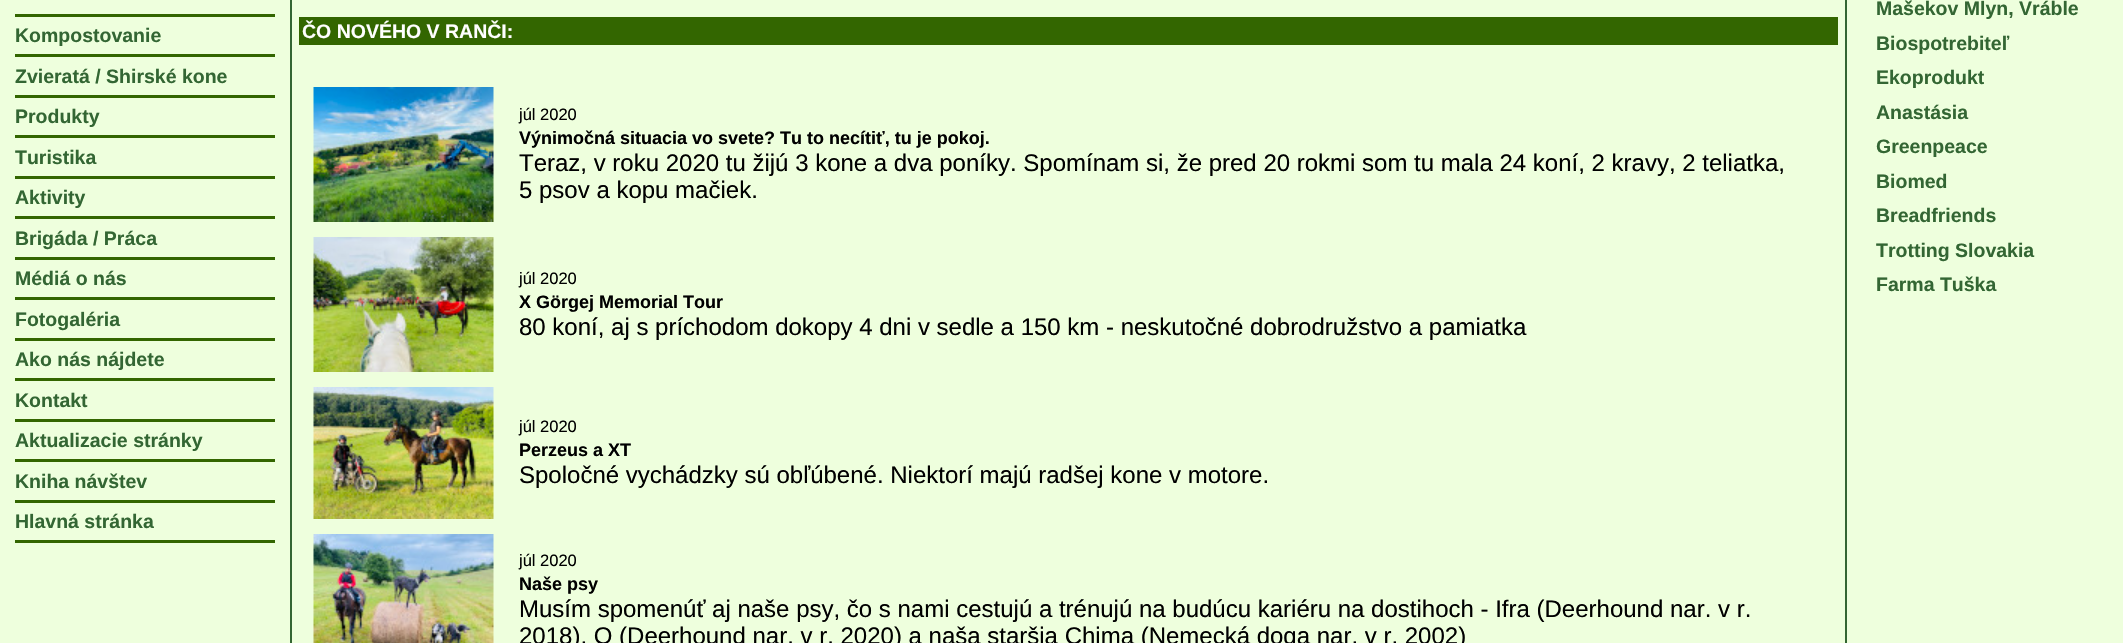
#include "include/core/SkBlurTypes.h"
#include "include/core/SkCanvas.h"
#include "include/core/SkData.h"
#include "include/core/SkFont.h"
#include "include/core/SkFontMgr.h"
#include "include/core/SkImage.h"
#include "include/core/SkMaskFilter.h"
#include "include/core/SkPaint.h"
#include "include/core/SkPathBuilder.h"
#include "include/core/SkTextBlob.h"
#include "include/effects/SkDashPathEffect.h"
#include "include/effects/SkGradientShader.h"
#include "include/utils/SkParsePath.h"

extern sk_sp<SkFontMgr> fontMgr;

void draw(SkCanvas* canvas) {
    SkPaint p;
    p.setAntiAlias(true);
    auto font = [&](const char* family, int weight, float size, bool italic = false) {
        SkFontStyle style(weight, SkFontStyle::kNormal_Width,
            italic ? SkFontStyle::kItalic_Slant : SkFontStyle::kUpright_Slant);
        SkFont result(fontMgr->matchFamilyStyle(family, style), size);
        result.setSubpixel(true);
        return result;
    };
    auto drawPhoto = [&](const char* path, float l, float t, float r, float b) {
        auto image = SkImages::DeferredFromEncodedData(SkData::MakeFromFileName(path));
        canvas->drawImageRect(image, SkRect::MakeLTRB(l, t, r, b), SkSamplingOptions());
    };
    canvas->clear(0xFFEEFFDD);
    p.setColor(0xFF336600);
    canvas->drawRect(SkRect::MakeLTRB(15, 14, 275, 17), p);
    auto font1 = font("Liberation Sans", 700, 19.5f);
    p.setColor(0xFF336633);
    canvas->drawString("Kompostovanie", 15, 42, font1, p);
    p.setColor(0xFF336600);
    canvas->drawRect(SkRect::MakeLTRB(15, 54, 275, 57), p);
    p.setColor(0xFF336633);
    canvas->drawString("Zvieratá / Shirské kone", 15, 83, font1, p);
    p.setColor(0xFF336600);
    canvas->drawRect(SkRect::MakeLTRB(15, 95, 275, 98), p);
    p.setColor(0xFF336633);
    canvas->drawString("Produkty", 15, 123, font1, p);
    p.setColor(0xFF336600);
    canvas->drawRect(SkRect::MakeLTRB(15, 135, 275, 138), p);
    p.setColor(0xFF336633);
    canvas->drawString("Turistika", 15, 164, font1, p);
    p.setColor(0xFF336600);
    canvas->drawRect(SkRect::MakeLTRB(15, 176, 275, 179), p);
    p.setColor(0xFF336633);
    canvas->drawString("Aktivity", 15, 204, font1, p);
    p.setColor(0xFF336600);
    canvas->drawRect(SkRect::MakeLTRB(15, 216, 275, 219), p);
    p.setColor(0xFF336633);
    canvas->drawString("Brigáda / Práca", 15, 245, font1, p);
    p.setColor(0xFF336600);
    canvas->drawRect(SkRect::MakeLTRB(15, 257, 275, 260), p);
    p.setColor(0xFF336633);
    canvas->drawString("Médiá o nás", 15, 285, font1, p);
    p.setColor(0xFF336600);
    canvas->drawRect(SkRect::MakeLTRB(15, 297, 275, 300), p);
    p.setColor(0xFF336633);
    canvas->drawString("Fotogaléria", 15, 326, font1, p);
    p.setColor(0xFF336600);
    canvas->drawRect(SkRect::MakeLTRB(15, 338, 275, 341), p);
    p.setColor(0xFF336633);
    canvas->drawString("Ako nás nájdete", 15, 366, font1, p);
    p.setColor(0xFF336600);
    canvas->drawRect(SkRect::MakeLTRB(15, 378, 275, 381), p);
    p.setColor(0xFF336633);
    canvas->drawString("Kontakt", 15, 407, font1, p);
    p.setColor(0xFF336600);
    canvas->drawRect(SkRect::MakeLTRB(15, 419, 275, 422), p);
    p.setColor(0xFF336633);
    canvas->drawString("Aktualizacie stránky", 15, 447, font1, p);
    p.setColor(0xFF336600);
    canvas->drawRect(SkRect::MakeLTRB(15, 459, 275, 462), p);
    p.setColor(0xFF336633);
    canvas->drawString("Kniha návštev", 15, 488, font1, p);
    p.setColor(0xFF336600);
    canvas->drawRect(SkRect::MakeLTRB(15, 500, 275, 503), p);
    p.setColor(0xFF336633);
    canvas->drawString("Hlavná stránka", 15, 528, font1, p);
    {
        const struct { float l, t, r, b; SkColor color; } items[] = {
            {15, 540, 275, 543, 0xFF336600},
            {1845, 0, 1847, 643, 0xFF336633},
            {290, 0, 292, 643, 0xFF336633},
            {299, 17, 1838, 45, 0xFF336600},
        };
        for (auto [l, t, r, b, color] : items) {
            p.setColor(color);
            canvas->drawRect(SkRect::MakeLTRB(l, t, r, b), p);
        }
    }
    p.setColor(0xFFFFFFFF);
    canvas->drawString("ČO NOVÉHO V RANČI:", 302, 38, font1, p);
    drawPhoto("media/1.png", 313, 87, 494, 222);
    auto font2 = font("Liberation Sans", 400, 16.5f);
    p.setColor(0xFF000000);
    canvas->drawString("júl 2020", 519, 120, font2, p);
    auto font3 = font("Liberation Sans", 700, 18);
    canvas->drawString("Výnimočná situacia vo svete? Tu to necítiť, tu je pokoj.", 519, 144, font3, p);
    auto font4 = font("Liberation Sans", 400, 24);
    canvas->drawString("Teraz, v roku 2020 tu žijú 3 kone a dva poníky. Spomínam si, že pred 20 rokmi som tu mala 24 koní, 2 kravy, 2 teliatka,", 519, 171, font4, p);
    canvas->drawString("5 psov a kopu mačiek.", 519, 198, font4, p);
    drawPhoto("media/2.png", 313, 237, 494, 372);
    canvas->drawString("júl 2020", 519, 284, font2, p);
    canvas->drawString("X Görgej Memorial Tour", 519, 308, font3, p);
    canvas->drawString("80 koní, aj s príchodom dokopy 4 dni v sedle a 150 km - neskutočné dobrodružstvo a pamiatka", 519, 335, font4, p);
    drawPhoto("media/3.png", 313, 387, 494, 519);
    canvas->drawString("júl 2020", 519, 432, font2, p);
    canvas->drawString("Perzeus a XT", 519, 456, font3, p);
    canvas->drawString("Spoločné vychádzky sú obľúbené. Niektorí majú radšej kone v motore.", 519, 483, font4, p);
    drawPhoto("media/4.png", 313, 534, 494, 643);
    canvas->drawString("júl 2020", 519, 566, font2, p);
    canvas->drawString("Naše psy", 519, 590, font3, p);
    canvas->drawString("Musím spomenúť aj naše psy, čo s nami cestujú a trénujú na budúcu kariéru na dostihoch - Ifra (Deerhound nar. v r.", 519, 617, font4, p);
    canvas->drawString("2018), Q (Deerhound nar. v r. 2020) a naša staršia Chima (Nemecká doga nar. v r. 2002)", 519, 644, font4, p);
    p.setColor(0xFF336633);
    {
        const struct { const char* s; float x, y; } items[] = {
            {"Mašekov Mlyn, Vráble", 1876, 15},
            {"Biospotrebiteľ", 1876, 50},
            {"Ekoprodukt", 1876, 84},
            {"Anastásia", 1876, 119},
            {"Greenpeace", 1876, 153},
            {"Biomed", 1876, 188},
            {"Breadfriends", 1876, 222},
            {"Trotting Slovakia", 1876, 257},
            {"Farma Tuška", 1876, 291},
        };
        for (auto [s, x, y] : items) {
            canvas->drawString(s, x, y, font1, p);
        }
    }
}
